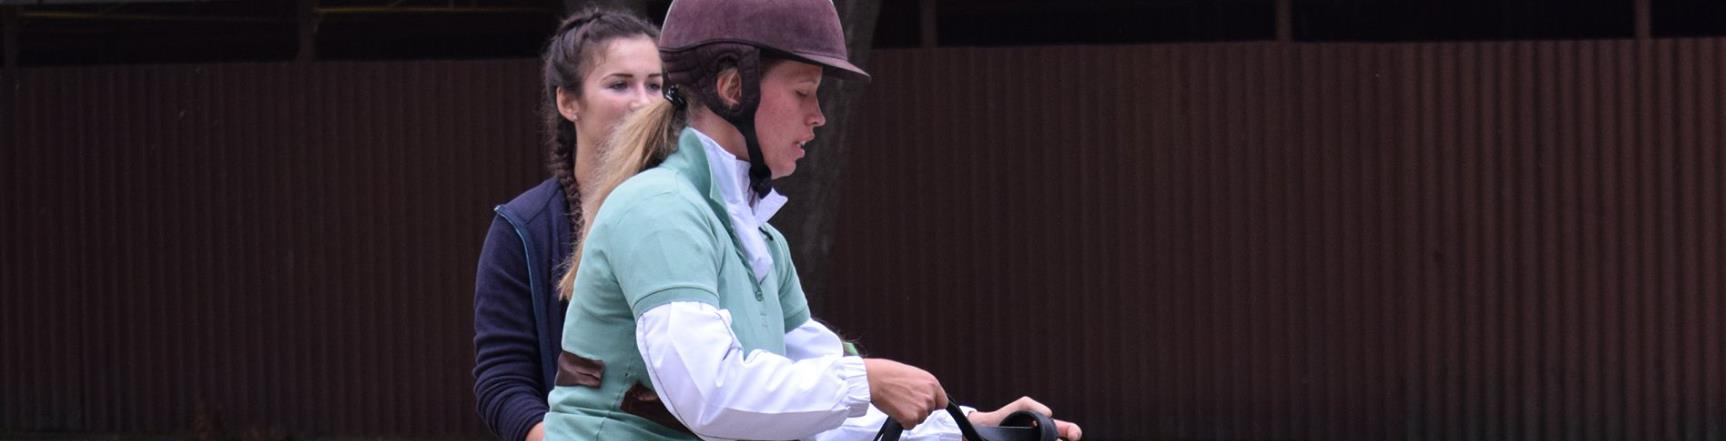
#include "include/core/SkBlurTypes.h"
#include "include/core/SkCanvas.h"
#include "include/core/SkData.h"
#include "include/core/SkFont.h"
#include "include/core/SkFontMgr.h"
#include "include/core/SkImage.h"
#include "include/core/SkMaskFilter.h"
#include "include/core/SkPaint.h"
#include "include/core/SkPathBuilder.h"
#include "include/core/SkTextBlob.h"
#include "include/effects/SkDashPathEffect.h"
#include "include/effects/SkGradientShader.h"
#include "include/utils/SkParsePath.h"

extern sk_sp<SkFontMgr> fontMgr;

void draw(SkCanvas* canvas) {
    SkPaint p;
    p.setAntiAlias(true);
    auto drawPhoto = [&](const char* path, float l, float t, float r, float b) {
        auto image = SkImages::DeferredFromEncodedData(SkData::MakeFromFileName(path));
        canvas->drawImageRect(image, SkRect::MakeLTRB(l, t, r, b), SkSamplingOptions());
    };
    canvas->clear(0xFFFFFFFF);
    drawPhoto("media/1.png", 0, 0, 1726, 441);
}
